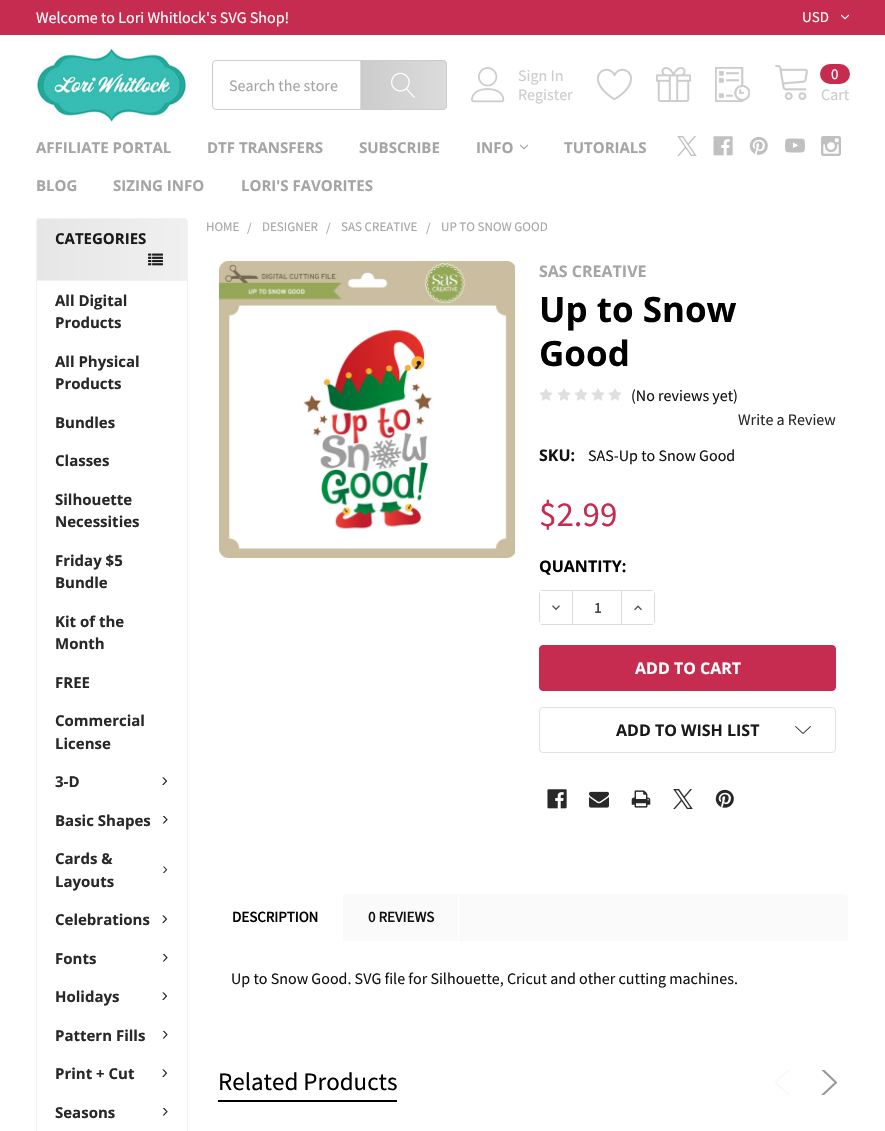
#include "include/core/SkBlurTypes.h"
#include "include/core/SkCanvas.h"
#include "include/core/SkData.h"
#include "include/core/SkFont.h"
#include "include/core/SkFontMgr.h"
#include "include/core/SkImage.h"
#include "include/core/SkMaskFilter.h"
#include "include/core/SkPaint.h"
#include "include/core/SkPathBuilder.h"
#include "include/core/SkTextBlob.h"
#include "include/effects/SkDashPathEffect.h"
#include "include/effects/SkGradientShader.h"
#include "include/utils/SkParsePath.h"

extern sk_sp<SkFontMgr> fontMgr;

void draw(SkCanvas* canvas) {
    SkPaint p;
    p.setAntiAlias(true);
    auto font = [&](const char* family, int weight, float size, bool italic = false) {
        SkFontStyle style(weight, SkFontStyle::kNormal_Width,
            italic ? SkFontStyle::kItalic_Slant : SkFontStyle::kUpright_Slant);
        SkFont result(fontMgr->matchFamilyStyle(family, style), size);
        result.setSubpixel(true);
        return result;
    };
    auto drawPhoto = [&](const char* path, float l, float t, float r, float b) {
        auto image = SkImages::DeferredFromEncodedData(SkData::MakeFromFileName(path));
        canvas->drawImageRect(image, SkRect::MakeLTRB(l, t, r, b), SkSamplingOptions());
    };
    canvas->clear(0xFFFFFFFF);
    p.setColor(0xFFC62B50);
    canvas->drawRect(SkRect::MakeLTRB(0, 0, 885, 35), p);
    auto font1 = font("Source Sans Pro", 400, 16);
    p.setColor(0xFFFFFFFF);
    canvas->drawString("Welcome to Lori Whitlock's SVG Shop!", 36, 23, font1, p);
    auto font2 = font("Source Sans Pro", 400, 15);
    canvas->drawString("USD", 802, 22, font2, p);
    drawPhoto("media/1.png", 841, 14, 849, 20);
    drawPhoto("media/2.png", 36, 48, 188, 122);
    p.setStyle(SkPaint::kStroke_Style);
    p.setStrokeWidth(1);
    p.setColor(0xFFCCCCCC);
    canvas->drawRoundRect(SkRect::MakeLTRB(212.5f, 60.5f, 446.5f, 109.5f), 3.5f, 3.5f, p);
    p.setStyle(SkPaint::kFill_Style);
    p.setColor(0xFFA5A5A5);
    canvas->drawString("Search the store", 229, 91, font1, p);
    {
        const SkColor colors[] = {0xFFCCCCCC, 0xB3CCCCCC};
        const float stops[] = {0, 1};
        const SkPoint ends[] = {{276, 85}, {361, 85}};
        p.setShader(SkGradientShader::MakeLinear(ends, colors, stops, 2, SkTileMode::kClamp));
        p.setAlpha(255);
    }
    canvas->drawRect(SkRect::MakeLTRB(360, 60, 361, 110), p);
    canvas->save();
    canvas->clipPath(SkPathBuilder().moveTo(360, 60).lineTo(443, 60).cubicTo(445, 60, 447, 62, 447, 64).lineTo(447, 106).cubicTo(447, 108, 445, 110, 443, 110).lineTo(360, 110).close().detach(), true);
    {
        const SkColor colors[] = {0xFFCCCCCC, 0xB3CCCCCC};
        const float stops[] = {0, 1};
        const SkPoint ends[] = {{361, 85}, {446, 85}};
        p.setShader(SkGradientShader::MakeLinear(ends, colors, stops, 2, SkTileMode::kClamp));
        p.setAlpha(255);
    }
    canvas->drawRect(SkRect::MakeLTRB(361, 60, 446, 110), p);
    {
        const SkColor colors[] = {0xFFCCCCCC, 0xB3CCCCCC};
        const float stops[] = {0, 1};
        const SkPoint ends[] = {{446, 85}, {531, 85}};
        p.setShader(SkGradientShader::MakeLinear(ends, colors, stops, 2, SkTileMode::kClamp));
        p.setAlpha(255);
    }
    canvas->drawRect(SkRect::MakeLTRB(446, 60, 447, 110), p);
    canvas->restore();
    drawPhoto("media/3.png", 391, 72, 415, 98);
    drawPhoto("media/4.png", 471, 67, 505, 103);
    p.setShader(nullptr);
    p.setColor(0xFFCCCCCC);
    canvas->drawString("Sign In", 518, 81, font1, p);
    canvas->drawString("Register", 518, 100, font1, p);
    drawPhoto("media/5.png", 597, 68, 632, 101);
    drawPhoto("media/6.png", 656, 67, 691, 102);
    drawPhoto("media/7.png", 715, 67, 750, 102);
    drawPhoto("media/8.png", 775, 65, 808, 100);
    p.setColor(0xFFC62B50);
    canvas->drawRoundRect(SkRect::MakeLTRB(820, 64, 850, 84), 10, 10, p);
    p.setColor(0xFFFFFFFF);
    canvas->drawString("0", 831, 79, font2, p);
    p.setColor(0xFFCCCCCC);
    canvas->drawString("Cart", 821, 100, font1, p);
    auto font3 = font("Open Sans", 700, 15);
    p.setColor(0xFFA5A5A5);
    {
        const struct { const char* s; float x, y; } items[] = {
            {"AFFILIATE PORTAL", 36, 153},
            {"DTF TRANSFERS", 207, 153},
            {"SUBSCRIBE", 359, 153},
            {"INFO", 476, 153},
        };
        for (auto [s, x, y] : items) {
            canvas->drawString(s, x, y, font3, p);
        }
    }
    drawPhoto("media/9.png", 520, 144, 528, 150);
    {
        const struct { const char* s; float x, y; } items[] = {
            {"TUTORIALS", 564, 153},
            {"BLOG", 36, 191},
            {"SIZING INFO", 113, 191},
            {"LORI'S FAVORITES", 241, 191},
        };
        for (auto [s, x, y] : items) {
            canvas->drawString(s, x, y, font3, p);
        }
    }
    drawPhoto("media/10.png", 677, 136, 697, 156);
    drawPhoto("media/11.png", 713, 136, 733, 156);
    drawPhoto("media/12.png", 749, 136, 768, 155);
    drawPhoto("media/13.png", 785, 138, 805, 153);
    drawPhoto("media/14.png", 821, 136, 841, 156);
    {
        const SkColor colors[] = {0xFFE6E6E6, 0xFFF0F0F0};
        const float stops[] = {0, 1};
        const SkPoint ends[] = {{36, 1108}, {188, 1108}};
        p.setShader(SkGradientShader::MakeLinear(ends, colors, stops, 2, SkTileMode::kClamp));
        p.setAlpha(255);
    }
    canvas->drawRoundRect(SkRect::MakeLTRB(36, 218, 188, 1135), 4, 4, p);
    p.setStyle(SkPaint::kStroke_Style);
    p.setShader(nullptr);
    p.setColor(0xFFF2F2F2);
    canvas->drawPath(SkPathBuilder().moveTo(40, 218.5f).lineTo(184, 218.5f).cubicTo(186, 218.5f, 187.5f, 220, 187.5f, 222).lineTo(187.5f, 280.5f).lineTo(36.5f, 280.5f).lineTo(36.5f, 222).cubicTo(36.5f, 220, 38, 218.5f, 40, 218.5f).close().detach(), p);
    p.setStyle(SkPaint::kFill_Style);
    p.setColor(0xFF1A1A1A);
    canvas->drawString("CATEGORIES", 55, 244, font3, p);
    drawPhoto("media/15.png", 148, 253, 163, 266);
    p.setColor(0xFFFFFFFF);
    canvas->drawRect(SkRect::MakeLTRB(37, 281, 187, 1131), p);
    p.setColor(0xFFF2F2F2);
    canvas->drawPath(SkPathBuilder(SkPathFillType::kEvenOdd).moveTo(36, 281).lineTo(188, 281).lineTo(188, 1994).cubicTo(188, 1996, 186, 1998, 184, 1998).lineTo(40, 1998).cubicTo(38, 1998, 36, 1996, 36, 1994).close().moveTo(37, 281).lineTo(187, 281).lineTo(187, 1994).cubicTo(187, 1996, 186, 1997, 184, 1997).lineTo(40, 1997).cubicTo(38, 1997, 37, 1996, 37, 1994).close().detach(), p);
    p.setColor(0xFF282828);
    {
        const struct { const char* s; float x, y; } items[] = {
            {"All Digital", 55, 306},
            {"Products", 55, 328},
            {"All Physical", 55, 367},
            {"Products", 55, 389},
            {"Bundles", 55, 428},
            {"Classes", 55, 466},
            {"Silhouette", 55, 505},
            {"Necessities", 55, 527},
            {"Friday $5", 55, 566},
            {"Bundle", 55, 588},
            {"Kit of the", 55, 627},
            {"Month", 55, 649},
            {"FREE", 55, 688},
            {"Commercial", 55, 726},
            {"License", 55, 749},
            {"3-D", 55, 787},
        };
        for (auto [s, x, y] : items) {
            canvas->drawString(s, x, y, font3, p);
        }
    }
    drawPhoto("media/16.png", 162, 777, 168, 785);
    canvas->drawString("Basic Shapes", 55, 826, font3, p);
    drawPhoto("media/17.png", 162, 815, 168, 824);
    canvas->drawString("Cards &", 55, 864, font3, p);
    drawPhoto("media/18.png", 163, 866, 168, 873);
    canvas->drawString("Layouts", 55, 887, font3, p);
    canvas->drawString("Celebrations", 55, 925, font3, p);
    drawPhoto("media/16.png", 162, 915, 168, 923);
    canvas->drawString("Fonts", 55, 964, font3, p);
    drawPhoto("media/17.png", 162, 953, 168, 962);
    canvas->drawString("Holidays", 55, 1002, font3, p);
    drawPhoto("media/16.png", 162, 992, 168, 1000);
    canvas->drawString("Pattern Fills", 55, 1041, font3, p);
    drawPhoto("media/17.png", 162, 1030, 168, 1039);
    canvas->drawString("Print + Cut", 55, 1079, font3, p);
    drawPhoto("media/16.png", 162, 1069, 168, 1077);
    canvas->drawString("Seasons", 55, 1118, font3, p);
    drawPhoto("media/17.png", 162, 1107, 168, 1116);
    auto font4 = font("Source Sans Pro", 400, 13);
    p.setColor(0xFFA5A5A5);
    {
        const struct { const char* s; float x, y; } items[] = {
            {"HOME", 206, 231},
            {"/", 247, 232},
            {"DESIGNER", 262, 231},
            {"/", 326, 232},
            {"SAS CREATIVE", 341, 231},
            {"/", 426, 232},
            {"UP TO SNOW GOOD", 441, 231},
        };
        for (auto [s, x, y] : items) {
            canvas->drawString(s, x, y, font4, p);
        }
    }
    drawPhoto("media/19.png", 219, 261, 515, 558);
    auto font5 = font("Open Sans", 700, 16);
    canvas->drawString("SAS CREATIVE", 539, 277, font5, p);
    auto font6 = font("Open Sans", 700, 35);
    p.setColor(0xFF000000);
    canvas->drawString("Up to Snow", 539, 322, font6, p);
    canvas->drawString("Good", 539, 366, font6, p);
    drawPhoto("media/20.png", 539, 388, 553, 401);
    drawPhoto("media/20.png", 557, 388, 571, 401);
    drawPhoto("media/20.png", 574, 388, 588, 401);
    drawPhoto("media/20.png", 591, 388, 605, 401);
    drawPhoto("media/20.png", 608, 388, 622, 401);
    p.setColor(0xFF131313);
    canvas->drawString("(No reviews yet)", 631, 401, font1, p);
    p.setColor(0xFF282828);
    canvas->drawString("Write a Review", 738, 425, font1, p);
    p.setColor(0xFF131313);
    canvas->drawString("SKU:", 539, 461, font5, p);
    canvas->drawString("SAS-Up to Snow Good", 588, 461, font1, p);
    auto font7 = font("Source Sans Pro", 400, 35);
    p.setColor(0xFFC62B50);
    canvas->drawString("$2.99", 539, 526, font7, p);
    p.setColor(0xFF000000);
    canvas->drawString("QUANTITY:", 539, 572, font5, p);
    {
        const struct { float l, t, r, b; SkColor color; } items[] = {
            {541, 590, 653, 591, 0xFFDCDCDC},
            {541, 624, 653, 625, 0xFFDCDCDC},
            {572, 591, 573, 624, 0xFFDCDCDC},
        };
        for (auto [l, t, r, b, color] : items) {
            p.setColor(color);
            canvas->drawRect(SkRect::MakeLTRB(l, t, r, b), p);
        }
    }
    canvas->drawPath(SkPathBuilder().moveTo(539, 594).lineTo(539, 621).cubicTo(539, 622, 539.5f, 622.5f, 540, 623).lineTo(540, 592).cubicTo(539.5f, 592.5f, 539, 593, 539, 594).close().detach(), p);
    drawPhoto("media/21.png", 552, 605, 560, 610);
    auto font8 = font("Source Sans Pro", 700, 15);
    p.setColor(0xFF454545);
    canvas->drawString("1", 594, 613, font8, p);
    p.setColor(0xFFDCDCDC);
    canvas->drawPath(SkPathBuilder().moveTo(655, 621).lineTo(655, 594).cubicTo(655, 593, 654.5f, 592.5f, 654, 592).lineTo(654, 623).cubicTo(654.5f, 622.5f, 655, 622, 655, 621).close().detach(), p);
    canvas->drawRect(SkRect::MakeLTRB(621, 591, 622, 624), p);
    drawPhoto("media/22.png", 634, 605, 642, 611);
    p.setColor(0xFFC62B50);
    canvas->drawRoundRect(SkRect::MakeLTRB(539.5f, 645.5f, 835.5f, 690.5f), 3.5f, 3.5f, p);
    p.setStyle(SkPaint::kStroke_Style);
    canvas->drawRoundRect(SkRect::MakeLTRB(539.5f, 645.5f, 835.5f, 690.5f), 3.5f, 3.5f, p);
    p.setStyle(SkPaint::kFill_Style);
    p.setColor(0xFFFFFFFF);
    canvas->drawString("ADD TO CART", 635, 674, font5, p);
    p.setStyle(SkPaint::kStroke_Style);
    p.setColor(0xFFE0E1E4);
    canvas->drawRoundRect(SkRect::MakeLTRB(539.5f, 707.5f, 835.5f, 752.5f), 3.5f, 3.5f, p);
    p.setStyle(SkPaint::kFill_Style);
    p.setColor(0xFF1A1A1A);
    canvas->drawString("ADD TO WISH LIST", 616, 736, font5, p);
    drawPhoto("media/23.png", 795, 726, 811, 734);
    drawPhoto("media/24.png", 547, 789, 567, 809);
    drawPhoto("media/25.png", 589, 791, 609, 808);
    drawPhoto("media/26.png", 631, 790, 651, 808);
    drawPhoto("media/27.png", 673, 789, 693, 809);
    drawPhoto("media/28.png", 715, 789, 734, 808);
    p.setColor(0xFFFAFAFA);
    canvas->drawPath(SkPathBuilder().moveTo(211, 894).lineTo(844, 894).cubicTo(846, 894, 848, 896, 848, 898).lineTo(848, 942).lineTo(207, 942).lineTo(207, 898).cubicTo(207, 896, 209, 894, 211, 894).close().detach(), p);
    p.setColor(0xFFFFFFFF);
    canvas->drawRect(SkRect::MakeLTRB(207, 941, 848, 942), p);
    canvas->drawPath(SkPathBuilder().moveTo(211, 894).lineTo(343, 894).lineTo(343, 941).lineTo(207, 941).lineTo(207, 898).cubicTo(207, 896, 209, 894, 211, 894).close().detach(), p);
    p.setColor(0xFF000000);
    canvas->drawString("DESCRIPTION", 232, 922, font8, p);
    p.setColor(0xFFFFFFFF);
    canvas->drawRect(SkRect::MakeLTRB(458, 894, 459, 941), p);
    p.setColor(0xFF131313);
    canvas->drawString("0 REVIEWS", 368, 922, font8, p);
    canvas->drawString("Up to Snow Good. SVG file for Silhouette, Cricut and other cutting machines.", 231, 984, font1, p);
    p.setColor(0xFF000000);
    canvas->drawRect(SkRect::MakeLTRB(218, 1100, 397, 1102), p);
    auto font9 = font("Source Sans Pro", 400, 25);
    canvas->drawString("Related Products", 218, 1090, font9, p);
    canvas->save();
    canvas->clipRect(SkRect::MakeLTRB(774, 1070, 800, 1095));
    p.setStyle(SkPaint::kStroke_Style);
    p.setStrokeWidth(2.1f);
    p.setStrokeCap(SkPaint::kRound_Cap);
    p.setStrokeJoin(SkPaint::kRound_Join);
    p.setColor(0xFFF9F9F9);
    canvas->drawPath(SkPathBuilder().moveTo(798, 1061).lineTo(775.5f, 1082.5f).lineTo(798, 1103.5f).detach(), p);
    canvas->restore();
    canvas->save();
    canvas->clipRect(SkRect::MakeLTRB(812, 1070, 837, 1095));
    p.setColor(0xFF989898);
    canvas->drawPath(SkPathBuilder().moveTo(813.5f, 1061).lineTo(836, 1082.5f).lineTo(813.5f, 1103.5f).detach(), p);
    canvas->restore();
}
